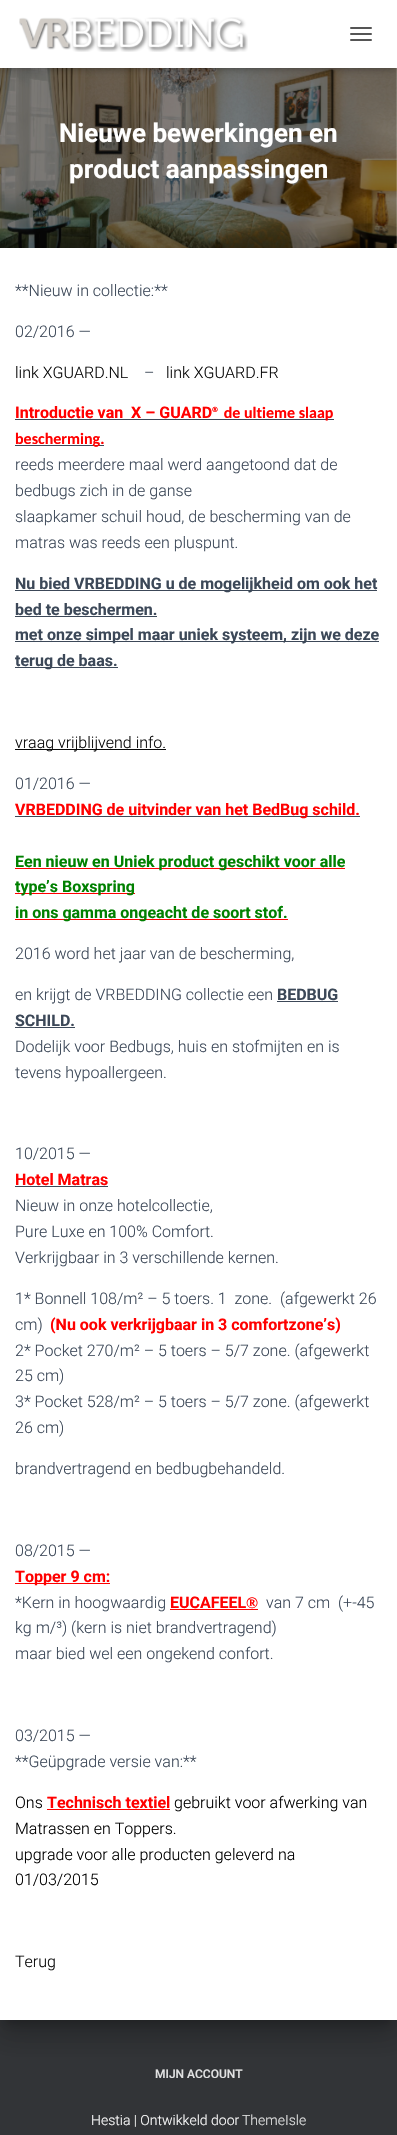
#include "include/core/SkBlurTypes.h"
#include "include/core/SkCanvas.h"
#include "include/core/SkData.h"
#include "include/core/SkFont.h"
#include "include/core/SkFontMgr.h"
#include "include/core/SkImage.h"
#include "include/core/SkMaskFilter.h"
#include "include/core/SkPaint.h"
#include "include/core/SkPathBuilder.h"
#include "include/core/SkTextBlob.h"
#include "include/effects/SkDashPathEffect.h"
#include "include/effects/SkGradientShader.h"
#include "include/utils/SkParsePath.h"

extern sk_sp<SkFontMgr> fontMgr;

void draw(SkCanvas* canvas) {
    SkPaint p;
    p.setAntiAlias(true);
    auto font = [&](const char* family, int weight, float size, bool italic = false) {
        SkFontStyle style(weight, SkFontStyle::kNormal_Width,
            italic ? SkFontStyle::kItalic_Slant : SkFontStyle::kUpright_Slant);
        SkFont result(fontMgr->matchFamilyStyle(family, style), size);
        result.setSubpixel(true);
        return result;
    };
    auto drawPhoto = [&](const char* path, float l, float t, float r, float b) {
        auto image = SkImages::DeferredFromEncodedData(SkData::MakeFromFileName(path));
        canvas->drawImageRect(image, SkRect::MakeLTRB(l, t, r, b), SkSamplingOptions());
    };
    canvas->clear(0xFFFFFFFF);
    drawPhoto("media/2.png", 0, 68, 397, 248);
    p.setColor(0x1A000000);
    p.setMaskFilter(SkMaskFilter::MakeBlur(kNormal_SkBlurStyle, 2.5f));
    canvas->drawRect(SkRect::MakeLTRB(2, 6, 395, 70), p);
    p.setMaskFilter(nullptr);
    p.setColor(0x1F000000);
    p.setMaskFilter(SkMaskFilter::MakeBlur(kNormal_SkBlurStyle, 5));
    canvas->drawRect(SkRect::MakeLTRB(0, 1, 397, 69), p);
    p.setMaskFilter(nullptr);
    p.setColor(0x6B000000);
    p.setMaskFilter(SkMaskFilter::MakeBlur(kNormal_SkBlurStyle, 5));
    canvas->drawRect(SkRect::MakeLTRB(6, 7, 391, 63), p);
    p.setMaskFilter(nullptr);
    p.setColor(0xFFFFFFFF);
    canvas->drawRect(SkRect::MakeLTRB(0, 0, 397, 68), p);
    drawPhoto("media/1.png", 19, 17, 248, 52);
    p.setColor(0xFF555555);
    canvas->drawRoundRect(SkRect::MakeLTRB(350, 27, 372, 29), 1, 1, p);
    canvas->drawRoundRect(SkRect::MakeLTRB(350, 33, 372, 35), 1, 1, p);
    canvas->drawRoundRect(SkRect::MakeLTRB(350, 39, 372, 41), 1, 1, p);
    auto font1 = font("Roboto", 700, 26);
    p.setColor(0xFFFFFFFF);
    canvas->drawString("Nieuwe bewerkingen en", 59, 142, font1, p);
    canvas->drawString("product aanpassingen", 69, 178, font1, p);
    p.setColor(0xFF323437);
    canvas->drawRect(SkRect::MakeLTRB(0, 2020, 397, 2135), p);
    p.setColor(0x33000000);
    p.setMaskFilter(SkMaskFilter::MakeBlur(kNormal_SkBlurStyle, 5));
    canvas->drawRect(SkRect::MakeLTRB(5, 261, 392, 2023), p);
    p.setMaskFilter(nullptr);
    p.setColor(0x1F000000);
    p.setMaskFilter(SkMaskFilter::MakeBlur(kNormal_SkBlurStyle, 15));
    canvas->drawRect(SkRect::MakeLTRB(-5, 249, 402, 2031), p);
    p.setMaskFilter(nullptr);
    p.setColor(0x24000000);
    p.setMaskFilter(SkMaskFilter::MakeBlur(kNormal_SkBlurStyle, 12));
    canvas->drawRect(SkRect::MakeLTRB(-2, 262, 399, 2038), p);
    p.setMaskFilter(nullptr);
    p.setColor(0xFFFFFFFF);
    canvas->drawRect(SkRect::MakeLTRB(0, 248, 397, 2020), p);
    auto font2 = font("Roboto", 300, 16);
    p.setColor(0xFF3C4858);
    canvas->drawString("**Nieuw in collectie:**", 15, 296, font2, p);
    canvas->drawString("02/2016 —", 15, 337, font2, p);
    p.setColor(0xFF0A0A0A);
    canvas->drawString("link XGUARD.NL", 15, 378, font2, p);
    p.setColor(0xFF3C4858);
    canvas->drawString("–", 144, 378, font2, p);
    p.setColor(0xFF0A0A0A);
    canvas->drawString("link XGUARD.FR", 166, 378, font2, p);
    auto font3 = font("Roboto", 700, 16);
    p.setColor(0xFFFF0000);
    canvas->drawString("Introductie van  X – GUARD", 15, 418, font3, p);
    p.setColor(0xFF3C4858);
    canvas->drawRect(SkRect::MakeLTRB(15, 419, 334, 420), p);
    auto font4 = font("Carlito", 700, 16);
    p.setColor(0xFFFF0000);
    canvas->drawString("® de ultieme slaap", 212, 418, font4, p);
    p.setColor(0xFF3C4858);
    canvas->drawRect(SkRect::MakeLTRB(15, 445, 104, 446), p);
    p.setColor(0xFFFF0000);
    canvas->drawString("bescherming.", 15, 444, font4, p);
    p.setColor(0xFF3C4858);
    {
        const struct { const char* s; float x, y; } items[] = {
            {"reeds meerdere maal werd aangetoond dat de", 15, 470},
            {"bedbugs zich in de ganse", 15, 496},
            {"slaapkamer schuil houd, de bescherming van de", 15, 522},
            {"matras was reeds een pluspunt.", 15, 548},
        };
        for (auto [s, x, y] : items) {
            canvas->drawString(s, x, y, font2, p);
        }
    }
    canvas->drawRect(SkRect::MakeLTRB(15, 590, 377, 591), p);
    canvas->drawString("Nu bied VRBEDDING u de mogelijkheid om ook het", 15, 589, font3, p);
    canvas->drawString("bed te beschermen.", 15, 615, font3, p);
    canvas->drawRect(SkRect::MakeLTRB(15, 616, 157, 617), p);
    canvas->drawRect(SkRect::MakeLTRB(15, 641, 379, 642), p);
    canvas->drawString("met onze simpel maar uniek systeem, zijn we deze", 15, 640, font3, p);
    canvas->drawRect(SkRect::MakeLTRB(15, 667, 118, 668), p);
    canvas->drawString("terug de baas.", 15, 666, font3, p);
    p.setColor(0xFF0A0A0A);
    canvas->drawRect(SkRect::MakeLTRB(15, 749, 166, 750), p);
    canvas->drawString("vraag vrijblijvend info.", 15, 748, font2, p);
    p.setColor(0xFF3C4858);
    canvas->drawString("01/2016 —", 15, 789, font2, p);
    canvas->drawRect(SkRect::MakeLTRB(15, 816, 360, 817), p);
    p.setColor(0xFFFF0000);
    canvas->drawString("VRBEDDING de uitvinder van het BedBug schild.", 15, 815, font3, p);
    canvas->drawRect(SkRect::MakeLTRB(15, 868, 345, 869), p);
    p.setColor(0xFF008000);
    canvas->drawString("Een nieuw en Uniek product geschikt voor alle", 15, 867, font3, p);
    p.setColor(0xFFFF0000);
    canvas->drawRect(SkRect::MakeLTRB(15, 893, 135, 894), p);
    p.setColor(0xFF008000);
    canvas->drawString("type’s Boxspring", 15, 892, font3, p);
    p.setColor(0xFFFF0000);
    canvas->drawRect(SkRect::MakeLTRB(15, 919, 288, 920), p);
    p.setColor(0xFF008000);
    canvas->drawString("in ons gamma ongeacht de soort stof.", 15, 918, font3, p);
    p.setColor(0xFF3C4858);
    canvas->drawString("2016 word het jaar van de bescherming,", 15, 959, font2, p);
    canvas->drawString("en krijgt de VRBEDDING collectie een", 15, 1000, font2, p);
    canvas->drawString("BEDBUG", 277, 1000, font3, p);
    canvas->drawRect(SkRect::MakeLTRB(277, 1001, 338, 1002), p);
    canvas->drawString("SCHILD.", 15, 1026, font3, p);
    canvas->drawRect(SkRect::MakeLTRB(15, 1027, 75, 1028), p);
    {
        const struct { const char* s; float x, y; } items[] = {
            {"Dodelijk voor Bedbugs, huis en stofmijten en is", 15, 1052},
            {"tevens hypoallergeen.", 15, 1078},
            {"10/2015 —", 15, 1159},
        };
        for (auto [s, x, y] : items) {
            canvas->drawString(s, x, y, font2, p);
        }
    }
    p.setColor(0xFFFF0000);
    canvas->drawString("Hotel Matras", 15, 1185, font3, p);
    p.setColor(0xFF3C4858);
    canvas->drawRect(SkRect::MakeLTRB(15, 1186, 108, 1187), p);
    {
        const struct { const char* s; float x, y; } items[] = {
            {"Nieuw in onze hotelcollectie,", 15, 1211},
            {"Pure Luxe en 100% Comfort.", 15, 1237},
            {"Verkrijgbaar in 3 verschillende kernen.", 15, 1263},
            {"1* Bonnell 108/m² – 5 toers. 1  zone.  (afgewerkt 26", 15, 1304},
            {"cm)", 15, 1330},
        };
        for (auto [s, x, y] : items) {
            canvas->drawString(s, x, y, font2, p);
        }
    }
    p.setColor(0xFFFF0000);
    canvas->drawString("(Nu ook verkrijgbaar in 3 comfortzone’s)", 50, 1330, font3, p);
    p.setColor(0xFF3C4858);
    {
        const struct { const char* s; float x, y; } items[] = {
            {"2* Pocket 270/m² – 5 toers – 5/7 zone. (afgewerkt", 15, 1356},
            {"25 cm)", 15, 1381},
            {"3* Pocket 528/m² – 5 toers – 5/7 zone. (afgewerkt", 15, 1407},
            {"26 cm)", 15, 1433},
            {"brandvertragend en bedbugbehandeld.", 15, 1474},
            {"08/2015 —", 15, 1556},
        };
        for (auto [s, x, y] : items) {
            canvas->drawString(s, x, y, font2, p);
        }
    }
    p.setColor(0xFFFF0000);
    canvas->drawRect(SkRect::MakeLTRB(15, 1583, 110, 1584), p);
    canvas->drawString("Topper 9 cm:", 15, 1582, font3, p);
    p.setColor(0xFF3C4858);
    canvas->drawString("*Kern in hoogwaardig", 15, 1608, font2, p);
    p.setColor(0xFFFF0000);
    canvas->drawString("EUCAFEEL", 170, 1608, font3, p);
    auto font5 = font("Liberation Serif", 700, 16);
    canvas->drawString("®", 246, 1608, font5, p);
    canvas->drawRect(SkRect::MakeLTRB(170, 1609, 258, 1610), p);
    p.setColor(0xFF3C4858);
    {
        const struct { const char* s; float x, y; } items[] = {
            {"van 7 cm  (+-45", 266, 1608},
            {"kg m/³) (kern is niet brandvertragend)", 15, 1633},
            {"maar bied wel een ongekend confort.", 15, 1659},
            {"03/2015 —", 15, 1741},
            {"**Geüpgrade versie van:**", 15, 1767},
        };
        for (auto [s, x, y] : items) {
            canvas->drawString(s, x, y, font2, p);
        }
    }
    p.setColor(0xFF000000);
    canvas->drawString("Ons", 15, 1808, font2, p);
    p.setColor(0xFFFF0000);
    canvas->drawString("Technisch textiel", 47, 1808, font3, p);
    canvas->drawRect(SkRect::MakeLTRB(47, 1809, 170, 1810), p);
    p.setColor(0xFF000000);
    {
        const struct { const char* s; float x, y; } items[] = {
            {"gebruikt voor afwerking van", 174, 1808},
            {"Matrassen en Toppers.", 15, 1834},
            {"upgrade voor alle producten geleverd na", 15, 1860},
            {"01/03/2015", 15, 1885},
        };
        for (auto [s, x, y] : items) {
            canvas->drawString(s, x, y, font2, p);
        }
    }
    p.setColor(0xFF0A0A0A);
    canvas->drawString("Terug", 15, 1967, font2, p);
    auto font6 = font("Roboto", 500, 12);
    p.setColor(0xFFE2E3E3);
    canvas->drawString("MIJN ACCOUNT", 155, 2078, font6, p);
    auto font7 = font("Roboto", 300, 14);
    p.setColor(0xFFFFFFFF);
    canvas->drawString("Hestia | Ontwikkeld door", 91, 2125, font7, p);
    p.setColor(0xFFE2E3E3);
    canvas->drawString("ThemeIsle", 242, 2125, font7, p);
}
